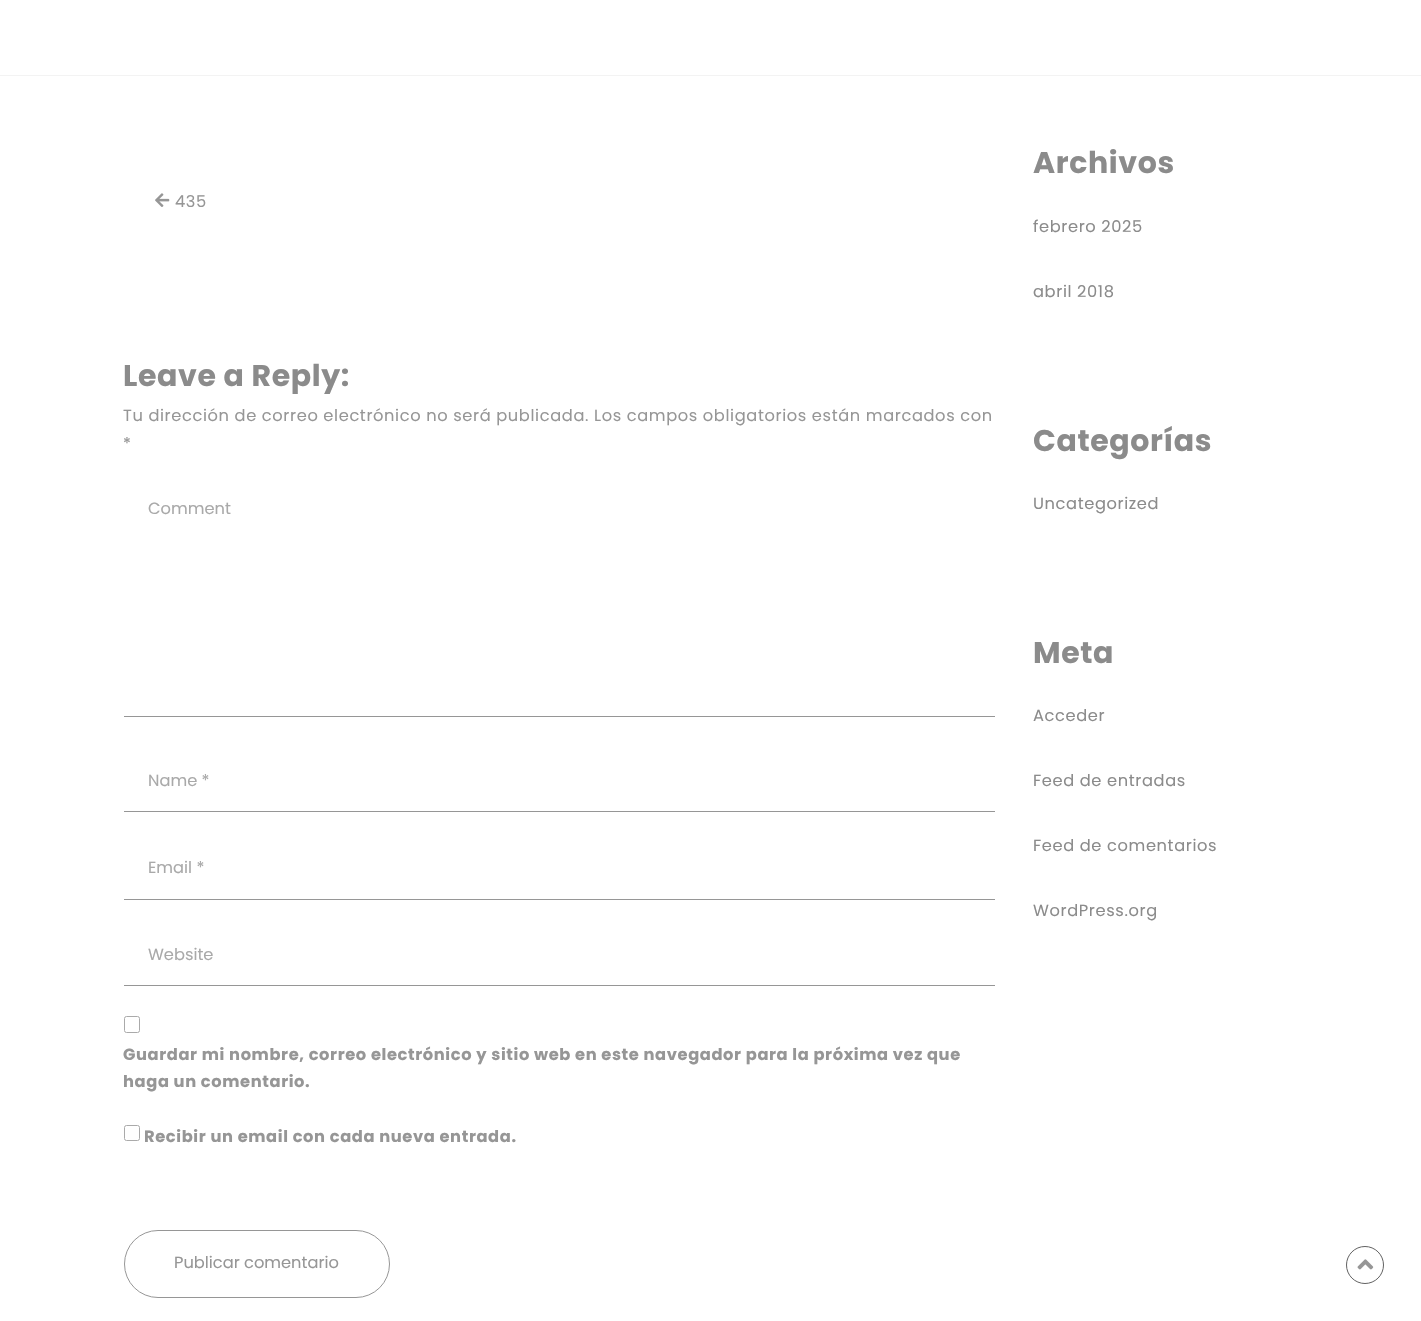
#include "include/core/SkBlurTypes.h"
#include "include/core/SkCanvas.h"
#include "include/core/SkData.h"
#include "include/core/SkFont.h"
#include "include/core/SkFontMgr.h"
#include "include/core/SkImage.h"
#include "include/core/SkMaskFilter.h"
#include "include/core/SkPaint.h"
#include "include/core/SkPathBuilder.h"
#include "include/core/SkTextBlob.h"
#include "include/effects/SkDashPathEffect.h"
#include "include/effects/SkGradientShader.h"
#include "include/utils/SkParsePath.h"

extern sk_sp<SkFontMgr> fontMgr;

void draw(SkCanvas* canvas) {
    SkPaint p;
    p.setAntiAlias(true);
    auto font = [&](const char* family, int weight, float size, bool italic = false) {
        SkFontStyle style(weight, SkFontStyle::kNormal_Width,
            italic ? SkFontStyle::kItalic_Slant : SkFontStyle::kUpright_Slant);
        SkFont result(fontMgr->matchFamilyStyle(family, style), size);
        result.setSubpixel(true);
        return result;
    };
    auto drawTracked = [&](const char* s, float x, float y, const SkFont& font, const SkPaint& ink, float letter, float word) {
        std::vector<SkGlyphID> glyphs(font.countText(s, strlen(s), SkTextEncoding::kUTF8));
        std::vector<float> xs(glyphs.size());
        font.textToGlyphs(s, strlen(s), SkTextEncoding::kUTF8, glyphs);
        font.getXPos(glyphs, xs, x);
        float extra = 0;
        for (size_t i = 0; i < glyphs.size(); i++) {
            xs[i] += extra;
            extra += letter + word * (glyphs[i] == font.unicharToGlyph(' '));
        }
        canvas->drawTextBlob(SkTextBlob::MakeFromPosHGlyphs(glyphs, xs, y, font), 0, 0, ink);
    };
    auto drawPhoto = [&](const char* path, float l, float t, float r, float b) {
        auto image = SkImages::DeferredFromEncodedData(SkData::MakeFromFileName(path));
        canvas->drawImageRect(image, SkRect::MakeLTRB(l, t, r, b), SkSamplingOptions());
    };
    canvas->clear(0xFFFFFFFF);
    p.setColor(0xFFF3F3F3);
    canvas->drawRect(SkRect::MakeLTRB(0, 75, 1421, 76), p);
    drawPhoto("media/1.png", 155, 193, 170, 207);
    auto font1 = font("Poppins", 400, 16.25f);
    p.setColor(0xFF969696);
    drawTracked("435", 175, 207, font1, p, 0.62f, 0);
    auto font2 = font("Poppins", 700, 30);
    p.setColor(0xFF8B8B8B);
    drawTracked("Leave a Reply:", 123, 386, font2, p, 0.62f, 0);
    p.setColor(0xFF969696);
    drawTracked("Tu dirección de correo electrónico no será publicada. Los campos obligatorios están marcados con", 123, 421, font1, p, 0.62f, 0);
    drawTracked("*", 123, 449, font1, p, 0.62f, 0);
    canvas->drawRect(SkRect::MakeLTRB(124, 716, 995, 717), p);
    p.setColor(0xFFA9A9A9);
    canvas->drawString("Comment", 148, 514, font1, p);
    p.setColor(0xFF969696);
    canvas->drawRect(SkRect::MakeLTRB(124, 811, 995, 812), p);
    p.setColor(0xFFA9A9A9);
    canvas->drawString("Name *", 148, 786, font1, p);
    p.setColor(0xFF969696);
    canvas->drawRect(SkRect::MakeLTRB(124, 899, 995, 900), p);
    p.setColor(0xFFA9A9A9);
    canvas->drawString("Email *", 148, 873, font1, p);
    p.setColor(0xFF969696);
    canvas->drawRect(SkRect::MakeLTRB(124, 985, 995, 986), p);
    p.setColor(0xFFA9A9A9);
    canvas->drawString("Website", 148, 960, font1, p);
    p.setStyle(SkPaint::kStroke_Style);
    p.setStrokeWidth(1);
    p.setColor(0xFFAAAAAA);
    canvas->drawRoundRect(SkRect::MakeLTRB(124.5f, 1016.5f, 139.5f, 1032.5f), 2, 2, p);
    auto font3 = font("Poppins", 700, 16.25f);
    p.setStyle(SkPaint::kFill_Style);
    p.setColor(0xFF969696);
    drawTracked("Guardar mi nombre, correo electrónico y sitio web en este navegador para la próxima vez que", 123, 1060, font3, p, 0.62f, 0);
    drawTracked("haga un comentario.", 123, 1087, font3, p, 0.62f, 0);
    p.setStyle(SkPaint::kStroke_Style);
    p.setColor(0xFFAAAAAA);
    canvas->drawRoundRect(SkRect::MakeLTRB(124.5f, 1125.5f, 139.5f, 1140.5f), 2, 2, p);
    p.setStyle(SkPaint::kFill_Style);
    p.setColor(0xFF969696);
    drawTracked("Recibir un email con cada nueva entrada.", 144, 1142, font3, p, 0.62f, 0);
    p.setStyle(SkPaint::kStroke_Style);
    canvas->drawRoundRect(SkRect::MakeLTRB(124.5f, 1230.5f, 389.5f, 1297.5f), 33.5f, 33.5f, p);
    p.setStyle(SkPaint::kFill_Style);
    canvas->drawString("Publicar comentario", 174, 1268, font1, p);
    p.setColor(0xFF8B8B8B);
    drawTracked("Archivos", 1033, 173, font2, p, 0.62f, 0);
    drawTracked("febrero 2025", 1033, 232, font1, p, 0.62f, 0);
    drawTracked("abril 2018", 1033, 297, font1, p, 0.62f, 0);
    drawTracked("Categorías", 1033, 451, font2, p, 0.62f, 0);
    drawTracked("Uncategorized", 1033, 509, font1, p, 0.62f, 0);
    drawTracked("Meta", 1033, 663, font2, p, 0.62f, 0);
    {
        const struct { const char* s; float x, y; } items[] = {
            {"Acceder", 1033, 721},
            {"Feed de entradas", 1033, 786},
            {"Feed de comentarios", 1033, 851},
            {"WordPress.org", 1033, 916},
        };
        for (auto [s, x, y] : items) {
            drawTracked(s, x, y, font1, p, 0.62f, 0);
        }
    }
    p.setStyle(SkPaint::kStroke_Style);
    p.setColor(0xFF616161);
    canvas->drawCircle(1365, 1265, 18.5f, p);
    drawPhoto("media/2.png", 1357, 1259, 1374, 1270);
}
